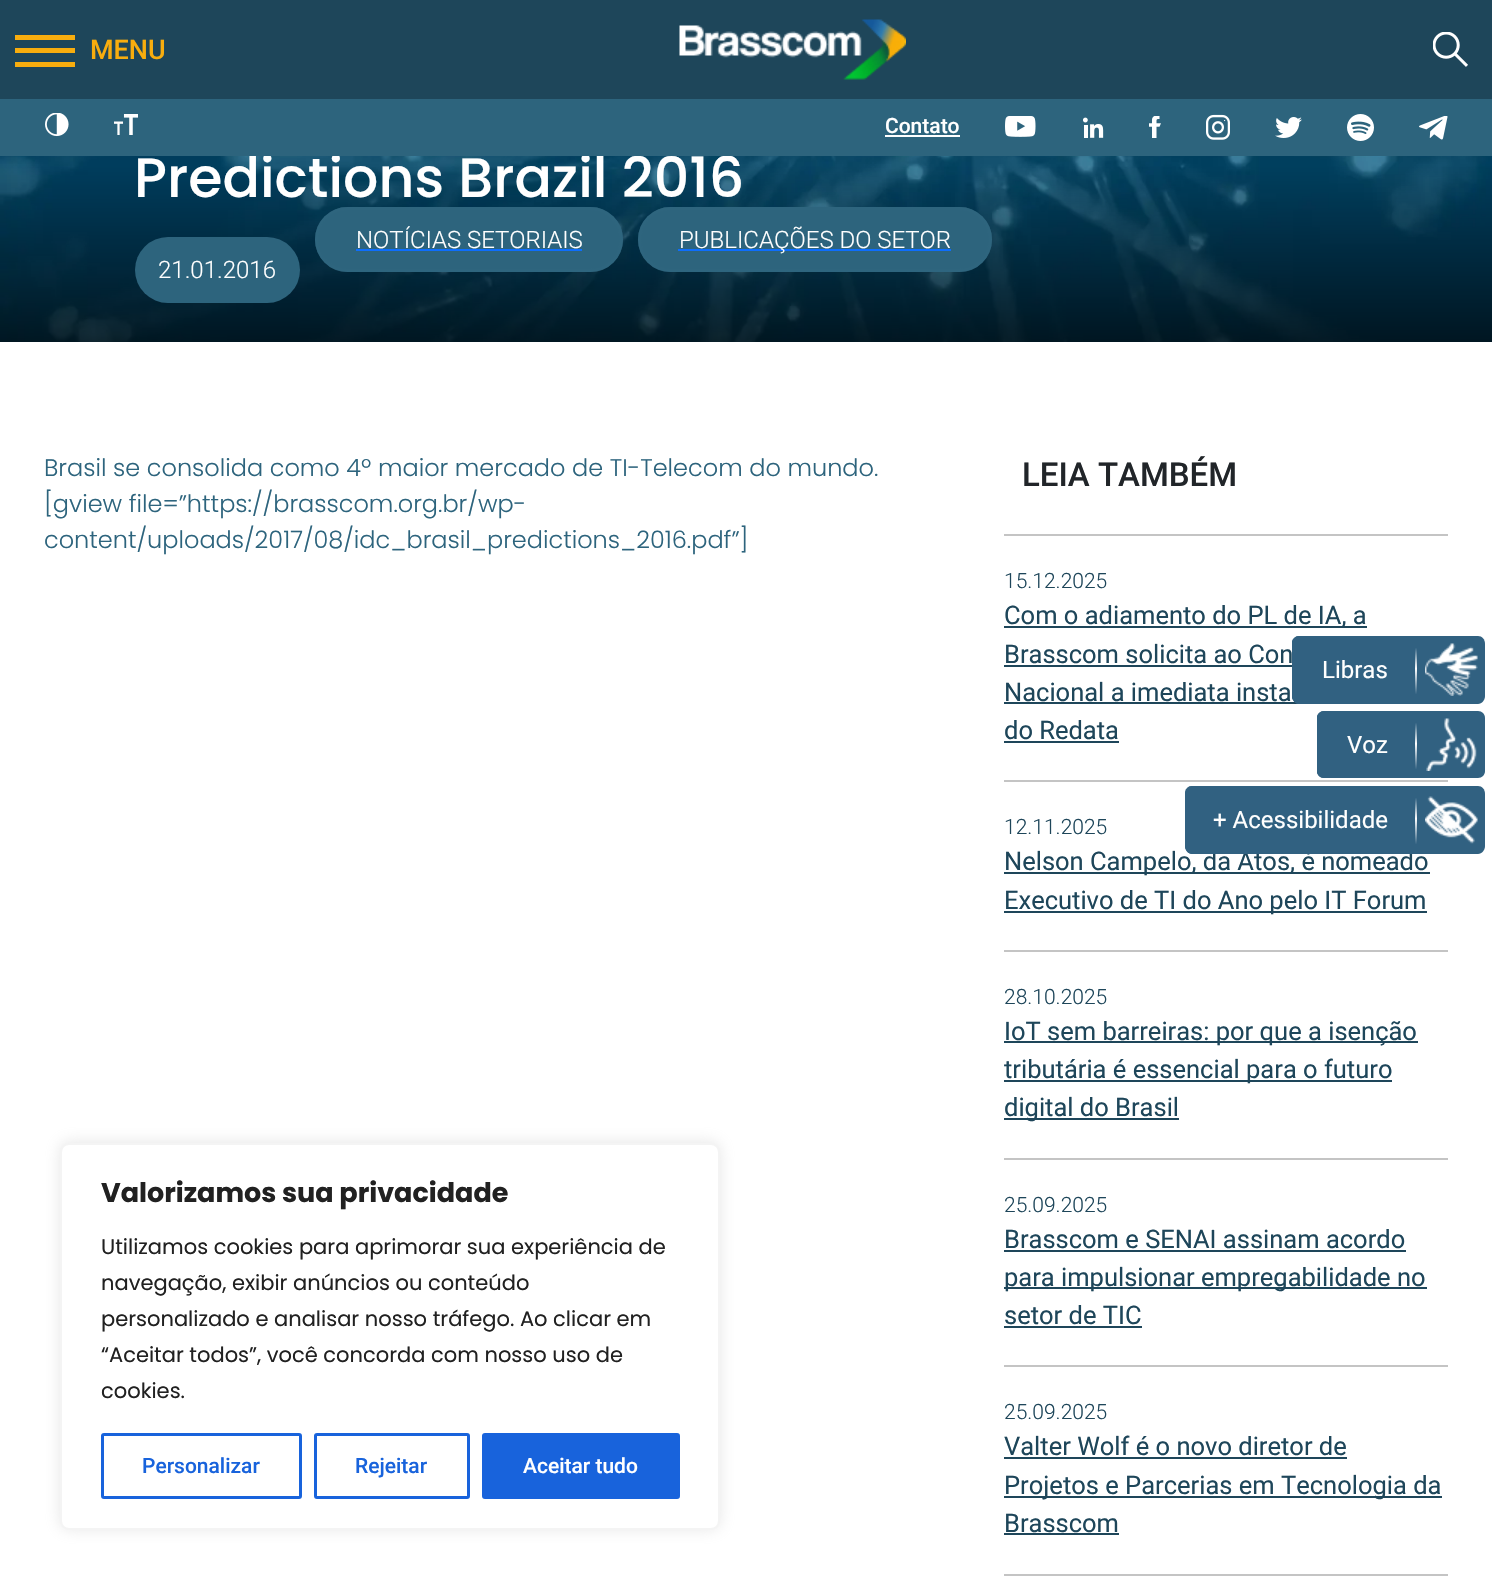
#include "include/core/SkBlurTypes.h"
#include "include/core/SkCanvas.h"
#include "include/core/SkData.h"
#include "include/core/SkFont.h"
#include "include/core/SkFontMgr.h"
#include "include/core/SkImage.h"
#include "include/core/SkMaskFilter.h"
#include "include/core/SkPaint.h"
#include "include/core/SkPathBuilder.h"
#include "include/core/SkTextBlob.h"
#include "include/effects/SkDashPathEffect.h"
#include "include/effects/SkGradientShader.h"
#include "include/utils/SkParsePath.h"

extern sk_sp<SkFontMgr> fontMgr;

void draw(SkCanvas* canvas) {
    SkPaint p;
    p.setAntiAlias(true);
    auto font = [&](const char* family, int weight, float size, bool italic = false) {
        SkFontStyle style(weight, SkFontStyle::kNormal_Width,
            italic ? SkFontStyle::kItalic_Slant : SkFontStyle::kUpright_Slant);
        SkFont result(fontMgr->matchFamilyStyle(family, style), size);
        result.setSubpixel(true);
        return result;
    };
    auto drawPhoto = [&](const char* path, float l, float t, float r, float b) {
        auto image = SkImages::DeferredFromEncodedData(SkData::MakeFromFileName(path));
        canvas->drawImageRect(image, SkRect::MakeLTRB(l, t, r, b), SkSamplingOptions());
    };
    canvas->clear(0xFFFFFFFF);
    {
        const struct { float l, t, r, b; SkColor color; } items[] = {
            {0, 0, 1492, 99, 0xFF1E465A},
            {15, 35, 75, 40, 0xFFF8AD0E},
            {15, 48, 75, 53, 0xFFF8AD0E},
            {15, 62, 75, 67, 0xFFF8AD0E},
        };
        for (auto [l, t, r, b, color] : items) {
            p.setColor(color);
            canvas->drawRect(SkRect::MakeLTRB(l, t, r, b), p);
        }
    }
    auto font1 = font("Roboto", 500, 27);
    canvas->drawString("MENU", 90, 59, font1, p);
    drawPhoto("media/1.png", 679, 19, 906, 80);
    drawPhoto("media/2.png", 1433, 32, 1468, 67);
    drawPhoto("media/12.png", 0, 156, 1492, 342);
    auto font2 = font("Poppins", 500, 55.4f);
    p.setColor(0xFFFFFFFF);
    canvas->drawString("Predictions Brazil 2016", 134, 197, font2, p);
    p.setColor(0xFF2D647D);
    canvas->drawRect(SkRect::MakeLTRB(0, 99, 1492, 156), p);
    drawPhoto("media/3.png", 45, 113, 69, 137);
    drawPhoto("media/4.png", 114, 114, 138, 135);
    auto font3 = font("Roboto", 500, 21);
    p.setColor(0xFFFFFFFF);
    canvas->drawString("Contato", 885, 133, font3, p);
    canvas->drawRect(SkRect::MakeLTRB(885, 135, 960, 137), p);
    drawPhoto("media/5.png", 1005, 116, 1036, 137);
    drawPhoto("media/6.png", 1083, 117, 1104, 138);
    drawPhoto("media/7.png", 1149, 116, 1161, 138);
    drawPhoto("media/8.png", 1206, 114, 1230, 140);
    drawPhoto("media/9.png", 1275, 117, 1302, 138);
    drawPhoto("media/10.png", 1347, 114, 1374, 141);
    drawPhoto("media/11.png", 1419, 116, 1448, 140);
    p.setColor(0xFF2D647D);
    canvas->drawRoundRect(SkRect::MakeLTRB(315, 207, 623, 272), 32.5f, 32.5f, p);
    p.setStyle(SkPaint::kStroke_Style);
    p.setStrokeWidth(3);
    p.setColor(0xAD2D647D);
    canvas->drawRoundRect(SkRect::MakeLTRB(316.5f, 208.5f, 621.5f, 270.5f), 31, 31, p);
    auto font4 = font("Roboto", 300, 24);
    p.setStyle(SkPaint::kFill_Style);
    p.setColor(0xFFFFFFFF);
    canvas->drawString("NOTÍCIAS SETORIAIS", 356, 248, font4, p);
    p.setColor(0xFF0D6EFD);
    canvas->drawRect(SkRect::MakeLTRB(356, 249, 582, 251), p);
    p.setColor(0xFF2D647D);
    canvas->drawRoundRect(SkRect::MakeLTRB(638, 207, 992, 272), 32.5f, 32.5f, p);
    p.setStyle(SkPaint::kStroke_Style);
    p.setColor(0xAD2D647D);
    canvas->drawRoundRect(SkRect::MakeLTRB(639.5f, 208.5f, 990.5f, 270.5f), 31, 31, p);
    p.setStyle(SkPaint::kFill_Style);
    p.setColor(0xFF0D6EFD);
    canvas->drawRect(SkRect::MakeLTRB(678, 249, 951, 251), p);
    p.setColor(0xFFFFFFFF);
    canvas->drawString("PUBLICAÇÕES DO SETOR", 679, 248, font4, p);
    p.setColor(0xFF2D647D);
    canvas->drawRoundRect(SkRect::MakeLTRB(135, 237, 300, 303), 33, 33, p);
    p.setColor(0xFFFFFFFF);
    canvas->drawString("21.01.2016", 158, 278, font4, p);
    auto font5 = font("Poppins", 300, 24);
    p.setColor(0xFF2D647D);
    {
        const struct { const char* s; float x, y; } items[] = {
            {"Brasil se consolida como 4º maior mercado de TI-Telecom do mundo.", 44, 476},
            {"[gview file=”https://brasscom.org.br/wp-", 44, 512},
            {"content/uploads/2017/08/idc_brasil_predictions_2016.pdf”]", 44, 548},
        };
        for (auto [s, x, y] : items) {
            canvas->drawString(s, x, y, font5, p);
        }
    }
    auto font6 = font("Roboto", 500, 33);
    p.setColor(0xFF212529);
    canvas->drawString("LEIA TAMBÉM", 1022, 486, font6, p);
    p.setColor(0xFFC4C4C4);
    canvas->drawRect(SkRect::MakeLTRB(1004, 534, 1448, 536), p);
    canvas->drawRect(SkRect::MakeLTRB(1004, 780, 1448, 782), p);
    auto font7 = font("Roboto", 300, 21);
    p.setColor(0xFF1E465A);
    canvas->drawString("15.12.2025", 1004, 588, font7, p);
    canvas->drawRect(SkRect::MakeLTRB(1004, 626, 1367, 628), p);
    auto font8 = font("Roboto", 400, 25.5f);
    canvas->drawString("Com o adiamento do PL de IA, a", 1004, 624, font8, p);
    canvas->drawString("Brasscom solicita ao Con", 1004, 663, font8, p);
    canvas->drawRect(SkRect::MakeLTRB(1004, 665, 1292, 667), p);
    canvas->drawString("Nacional a imediata insta", 1004, 701, font8, p);
    canvas->drawRect(SkRect::MakeLTRB(1004, 702, 1299, 704), p);
    canvas->drawString("do Redata", 1004, 739, font8, p);
    canvas->drawRect(SkRect::MakeLTRB(1004, 741, 1119, 743), p);
    p.setColor(0xFFC4C4C4);
    canvas->drawRect(SkRect::MakeLTRB(1004, 950, 1448, 952), p);
    p.setColor(0xFF1E465A);
    canvas->drawString("12.11.2025", 1004, 834, font7, p);
    canvas->drawRect(SkRect::MakeLTRB(1004, 872, 1430, 874), p);
    canvas->drawString("Nelson Campelo, da Atos, é nomeado", 1004, 870, font8, p);
    canvas->drawRect(SkRect::MakeLTRB(1004, 911, 1427, 913), p);
    canvas->drawString("Executivo de TI do Ano pelo IT Forum", 1004, 909, font8, p);
    p.setColor(0xFFC4C4C4);
    canvas->drawRect(SkRect::MakeLTRB(1004, 1158, 1448, 1160), p);
    p.setColor(0xFF1E465A);
    canvas->drawString("28.10.2025", 1004, 1004, font7, p);
    canvas->drawRect(SkRect::MakeLTRB(1004, 1041, 1418, 1043), p);
    canvas->drawString("IoT sem barreiras: por que a isenção", 1004, 1040, font8, p);
    canvas->drawRect(SkRect::MakeLTRB(1004, 1080, 1392, 1082), p);
    canvas->drawString("tributária é essencial para o futuro", 1004, 1078, font8, p);
    canvas->drawRect(SkRect::MakeLTRB(1004, 1118, 1179, 1120), p);
    canvas->drawString("digital do Brasil", 1004, 1116, font8, p);
    p.setColor(0xFFC4C4C4);
    canvas->drawRect(SkRect::MakeLTRB(1004, 1365, 1448, 1367), p);
    p.setColor(0xFF1E465A);
    canvas->drawString("25.09.2025", 1004, 1212, font7, p);
    canvas->drawString("Brasscom e SENAI assinam acordo", 1004, 1248, font8, p);
    canvas->drawRect(SkRect::MakeLTRB(1004, 1250, 1406, 1252), p);
    canvas->drawRect(SkRect::MakeLTRB(1004, 1287, 1427, 1289), p);
    canvas->drawString("para impulsionar empregabilidade no", 1004, 1286, font8, p);
    canvas->drawString("setor de TIC", 1004, 1324, font8, p);
    canvas->drawRect(SkRect::MakeLTRB(1004, 1326, 1142, 1328), p);
    p.setColor(0xFFC4C4C4);
    canvas->drawRect(SkRect::MakeLTRB(1004, 1574, 1448, 1576), p);
    p.setColor(0xFF1E465A);
    canvas->drawString("25.09.2025", 1004, 1419, font7, p);
    canvas->drawString("Valter Wolf é o novo diretor de", 1004, 1455, font8, p);
    canvas->drawRect(SkRect::MakeLTRB(1004, 1457, 1347, 1459), p);
    canvas->drawRect(SkRect::MakeLTRB(1004, 1496, 1442, 1498), p);
    canvas->drawString("Projetos e Parcerias em Tecnologia da", 1004, 1494, font8, p);
    canvas->drawString("Brasscom", 1004, 1532, font8, p);
    canvas->drawRect(SkRect::MakeLTRB(1004, 1533, 1119, 1535), p);
    p.setColor(0xFF316181);
    canvas->drawPath(SkPathBuilder().moveTo(1478, 636).lineTo(1299, 636).cubicTo(1295, 636, 1292, 639, 1292, 644).lineTo(1292, 696).cubicTo(1292, 700, 1295, 704, 1299, 704).lineTo(1478, 704).cubicTo(1482, 704, 1485, 700, 1485, 696).lineTo(1485, 644).cubicTo(1485, 639, 1482, 636, 1478, 636).close().detach(), p);
    canvas->drawPath(SkPathBuilder().moveTo(1420, 704).cubicTo(1423, 702, 1425, 699, 1425, 696).lineTo(1425, 644).cubicTo(1425, 640, 1421, 636, 1417, 636).lineTo(1299, 636).cubicTo(1296, 636, 1293, 638, 1292, 641).lineTo(1292, 698).cubicTo(1293, 701, 1296, 704, 1299, 704).close().detach(), p);
    auto font9 = font("Roboto", 400, 24);
    p.setColor(0xFFFFFFFF);
    canvas->drawString("Libras", 1322, 678, font9, p);
    {
        const SkColor colors[] = {0xFF316181, 0xFFFFFFFF, 0xFF316181};
        const float stops[] = {0.14f, 0.52f, 0.83f};
        const SkPoint ends[] = {{1415, 704}, {1415, 636}};
        p.setShader(SkGradientShader::MakeLinear(ends, colors, stops, 3, SkTileMode::kClamp));
        p.setAlpha(255);
    }
    canvas->drawRect(SkRect::MakeLTRB(1415, 648, 1417, 694), p);
    drawPhoto("media/13.png", 1425, 643, 1478, 696);
    p.setShader(nullptr);
    p.setColor(0xFF316181);
    canvas->drawPath(SkPathBuilder().moveTo(1478, 711).lineTo(1324, 711).cubicTo(1320, 711, 1317, 714, 1317, 718).lineTo(1317, 771).cubicTo(1317, 775, 1320, 778, 1324, 778).lineTo(1478, 778).cubicTo(1482, 778, 1485, 775, 1485, 771).lineTo(1485, 718).cubicTo(1485, 714, 1482, 711, 1478, 711).close().detach(), p);
    canvas->drawPath(SkPathBuilder().moveTo(1420, 778).cubicTo(1423, 777, 1425, 774, 1425, 771).lineTo(1425, 719).cubicTo(1425, 715, 1421, 711, 1417, 711).lineTo(1324, 711).cubicTo(1321, 711, 1318, 713, 1317, 716).lineTo(1317, 773).cubicTo(1318, 776, 1321, 778, 1324, 778).close().detach(), p);
    p.setColor(0xFFFFFFFF);
    canvas->drawString("Voz", 1347, 753, font9, p);
    {
        const SkColor colors[] = {0xFF316181, 0xFFFFFFFF, 0xFF316181};
        const float stops[] = {0.14f, 0.52f, 0.83f};
        const SkPoint ends[] = {{1415, 779}, {1415, 711}};
        p.setShader(SkGradientShader::MakeLinear(ends, colors, stops, 3, SkTileMode::kClamp));
        p.setAlpha(255);
    }
    canvas->drawRect(SkRect::MakeLTRB(1415, 723, 1417, 769), p);
    drawPhoto("media/14.png", 1426, 718, 1477, 771);
    p.setShader(nullptr);
    p.setColor(0xFF316181);
    canvas->drawPath(SkPathBuilder().moveTo(1478, 786).lineTo(1192, 786).cubicTo(1188, 786, 1185, 789, 1185, 794).lineTo(1185, 846).cubicTo(1185, 850, 1188, 854, 1192, 854).lineTo(1478, 854).cubicTo(1482, 854, 1485, 850, 1485, 846).lineTo(1485, 794).cubicTo(1485, 789, 1482, 786, 1478, 786).close().detach(), p);
    canvas->drawPath(SkPathBuilder().moveTo(1417, 786).lineTo(1192, 786).cubicTo(1188, 786, 1185, 789, 1185, 794).lineTo(1185, 846).cubicTo(1185, 850, 1188, 854, 1192, 854).lineTo(1420, 854).cubicTo(1423, 852, 1425, 849, 1425, 846).lineTo(1425, 794).cubicTo(1425, 790, 1421, 786, 1417, 786).close().detach(), p);
    p.setColor(0xFFFFFFFF);
    canvas->drawString("+ Acessibilidade", 1213, 828, font9, p);
    {
        const SkColor colors[] = {0xFF316181, 0xFFFFFFFF, 0xFF316181};
        const float stops[] = {0.14f, 0.52f, 0.83f};
        const SkPoint ends[] = {{1415, 854}, {1415, 786}};
        p.setShader(SkGradientShader::MakeLinear(ends, colors, stops, 3, SkTileMode::kClamp));
        p.setAlpha(255);
    }
    canvas->drawRect(SkRect::MakeLTRB(1415, 798, 1417, 844), p);
    drawPhoto("media/15.png", 1425, 796, 1478, 844);
    p.setShader(nullptr);
    p.setColor(0x4DACABAB);
    p.setMaskFilter(SkMaskFilter::MakeBlur(kNormal_SkBlurStyle, 7.5f));
    canvas->drawRoundRect(SkRect::MakeLTRB(60, 1142, 720, 1529), 9, 9, p);
    p.setMaskFilter(nullptr);
    p.setColor(0xFFFFFFFF);
    canvas->drawRoundRect(SkRect::MakeLTRB(61, 1144, 719, 1529), 8, 8, p);
    p.setStyle(SkPaint::kStroke_Style);
    p.setStrokeWidth(2);
    p.setColor(0xFFF4F4F4);
    canvas->drawRoundRect(SkRect::MakeLTRB(61, 1144, 719, 1529), 8, 8, p);
    auto font10 = font("Poppins", 700, 27);
    p.setStyle(SkPaint::kFill_Style);
    p.setColor(0xFF212121);
    canvas->drawString("Valorizamos sua privacidade", 101, 1202, font10, p);
    auto font11 = font("Poppins", 400, 21);
    {
        const struct { const char* s; float x, y; } items[] = {
            {"Utilizamos cookies para aprimorar sua experiência de", 101, 1254},
            {"navegação, exibir anúncios ou conteúdo", 101, 1290},
            {"personalizado e analisar nosso tráfego. Ao clicar em", 101, 1326},
            {"“Aceitar todos”, você concorda com nosso uso de", 101, 1362},
            {"cookies.", 101, 1398},
        };
        for (auto [s, x, y] : items) {
            canvas->drawString(s, x, y, font11, p);
        }
    }
    p.setStyle(SkPaint::kStroke_Style);
    p.setStrokeWidth(3);
    p.setColor(0xFF1863DC);
    canvas->drawRoundRect(SkRect::MakeLTRB(102.5f, 1434.5f, 300.5f, 1497.5f), 1.5f, 1.5f, p);
    p.setStyle(SkPaint::kFill_Style);
    canvas->drawString("Personalizar", 142, 1473, font3, p);
    p.setStyle(SkPaint::kStroke_Style);
    canvas->drawRoundRect(SkRect::MakeLTRB(315.5f, 1434.5f, 468.5f, 1497.5f), 1.5f, 1.5f, p);
    p.setStyle(SkPaint::kFill_Style);
    canvas->drawString("Rejeitar", 355, 1473, font3, p);
    canvas->drawRoundRect(SkRect::MakeLTRB(483.5f, 1434.5f, 678.5f, 1497.5f), 1.5f, 1.5f, p);
    p.setStyle(SkPaint::kStroke_Style);
    canvas->drawRoundRect(SkRect::MakeLTRB(483.5f, 1434.5f, 678.5f, 1497.5f), 1.5f, 1.5f, p);
    p.setStyle(SkPaint::kFill_Style);
    p.setColor(0xFFFFFFFF);
    canvas->drawString("Aceitar tudo", 523, 1473, font3, p);
}
